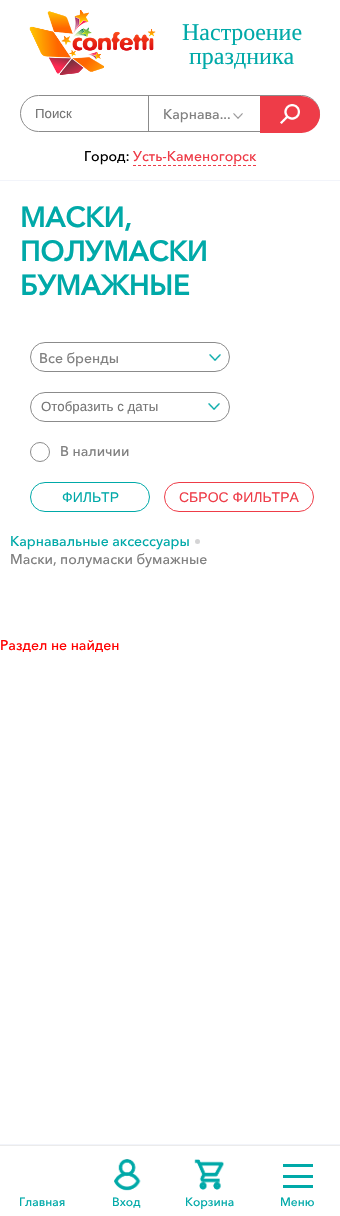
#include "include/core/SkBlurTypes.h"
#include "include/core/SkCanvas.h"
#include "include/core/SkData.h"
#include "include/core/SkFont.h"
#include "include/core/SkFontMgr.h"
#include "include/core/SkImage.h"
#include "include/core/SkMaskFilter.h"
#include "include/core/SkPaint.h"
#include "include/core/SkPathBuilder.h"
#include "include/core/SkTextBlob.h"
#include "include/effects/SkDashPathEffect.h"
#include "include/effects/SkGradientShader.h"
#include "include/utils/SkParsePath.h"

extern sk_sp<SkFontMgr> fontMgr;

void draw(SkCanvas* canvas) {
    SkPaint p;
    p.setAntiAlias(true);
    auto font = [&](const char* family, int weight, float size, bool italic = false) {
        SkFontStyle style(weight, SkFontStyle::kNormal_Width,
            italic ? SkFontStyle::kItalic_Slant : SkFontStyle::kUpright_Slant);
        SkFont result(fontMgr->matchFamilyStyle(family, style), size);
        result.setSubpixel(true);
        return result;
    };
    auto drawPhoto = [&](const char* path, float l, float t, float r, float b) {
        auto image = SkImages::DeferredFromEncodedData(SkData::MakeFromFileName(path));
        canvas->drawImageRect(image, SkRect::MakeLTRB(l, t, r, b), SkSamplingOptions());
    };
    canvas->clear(0xFFFFFFFF);
    p.setColor(0xFFF2F4FA);
    canvas->drawRect(SkRect::MakeLTRB(0, 180, 340, 181), p);
    drawPhoto("media/1.png", 29, 10, 156, 75);
    auto font1 = font("Liberation Serif", 400, 24);
    p.setColor(0xFF00A9A8);
    canvas->drawString("Настроение", 182, 40, font1, p);
    canvas->drawString("праздника", 189, 64, font1, p);
    p.setStyle(SkPaint::kStroke_Style);
    p.setStrokeWidth(1);
    p.setColor(0xFF8B8B8B);
    canvas->drawRoundRect(SkRect::MakeLTRB(20.5f, 95.5f, 319.5f, 131.5f), 18, 18, p);
    auto font2 = font("Liberation Sans", 400, 13.25f);
    p.setStyle(SkPaint::kFill_Style);
    p.setColor(0xFF757575);
    canvas->drawString("Поиск", 35, 118, font2, p);
    p.setColor(0xFF8B8B8B);
    canvas->drawRect(SkRect::MakeLTRB(148, 96, 149, 131), p);
    auto font3 = font("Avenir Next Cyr", 500, 14);
    p.setColor(0xFF808080);
    canvas->drawString("Карнава...", 163, 119, font3, p);
    drawPhoto("media/2.png", 233, 113, 243, 119);
    p.setColor(0xFFEE3C48);
    canvas->drawPath(SkPathBuilder().moveTo(260, 96).lineTo(301.5f, 96).cubicTo(311.5f, 96, 320, 104.5f, 320, 114.5f).cubicTo(320, 124.5f, 311.5f, 133, 301.5f, 133).lineTo(260, 133).close().detach(), p);
    drawPhoto("media/3.png", 280, 104, 300, 124);
    p.setColor(0xFF000000);
    canvas->drawString("Город:", 84, 161, font3, p);
    p.setColor(0xFFEE3C48);
    canvas->drawString("Усть-Каменогорск", 133, 161, font3, p);
    p.setStyle(SkPaint::kStroke_Style);
    p.setPathEffect(SkDashPathEffect::Make({{3, 2}}, 0));
    canvas->drawPath(SkPathBuilder().moveTo(133, 165.5f).lineTo(256, 165.5f).detach(), p);
    p.setPathEffect(nullptr);
    auto font4 = font("Avenir Next Cyr", 700, 28);
    p.setStyle(SkPaint::kFill_Style);
    p.setColor(0xFF00A9A8);
    {
        const struct { const char* s; float x, y; } items[] = {
            {"МАСКИ,", 20, 227},
            {"ПОЛУМАСКИ", 20, 261},
            {"БУМАЖНЫЕ", 20, 295},
        };
        for (auto [s, x, y] : items) {
            canvas->drawString(s, x, y, font4, p);
        }
    }
    p.setStyle(SkPaint::kStroke_Style);
    p.setColor(0xFF8B8B8B);
    canvas->drawRoundRect(SkRect::MakeLTRB(30.5f, 342.5f, 229.5f, 371.5f), 14.5f, 14.5f, p);
    p.setStyle(SkPaint::kFill_Style);
    p.setColor(0xFF808080);
    canvas->drawString("Все бренды", 39, 363, font3, p);
    drawPhoto("media/4.png", 209, 354, 221, 361);
    drawPhoto("media/4.png", 208, 403, 220, 410);
    p.setStyle(SkPaint::kStroke_Style);
    p.setColor(0xFF8B8B8B);
    canvas->drawRoundRect(SkRect::MakeLTRB(30.5f, 392.5f, 229.5f, 421.5f), 14.5f, 14.5f, p);
    p.setStyle(SkPaint::kFill_Style);
    p.setColor(0xFF757575);
    canvas->drawString("Отобразить с даты", 41, 411, font2, p);
    p.setStyle(SkPaint::kStroke_Style);
    p.setColor(0xFF8B8B8B);
    canvas->drawCircle(40, 452, 9.5f, p);
    p.setStyle(SkPaint::kFill_Style);
    p.setColor(0xFF808080);
    canvas->drawString("В наличии", 60, 456, font3, p);
    p.setStyle(SkPaint::kStroke_Style);
    p.setColor(0xFF00A9A8);
    canvas->drawRoundRect(SkRect::MakeLTRB(30.5f, 482.5f, 149.5f, 511.5f), 14.5f, 14.5f, p);
    auto font5 = font("Liberation Sans", 400, 14);
    p.setStyle(SkPaint::kFill_Style);
    canvas->drawString("ФИЛЬТР", 62, 502, font5, p);
    p.setStyle(SkPaint::kStroke_Style);
    p.setColor(0xFFEE3C48);
    canvas->drawRoundRect(SkRect::MakeLTRB(164.5f, 482.5f, 313.5f, 511.5f), 14.5f, 14.5f, p);
    p.setStyle(SkPaint::kFill_Style);
    canvas->drawString("СБРОС ФИЛЬТРА", 179, 502, font5, p);
    p.setColor(0xFF00A9A8);
    canvas->drawString("Карнавальные аксессуары", 10, 546, font3, p);
    p.setColor(0xFFD4D4D5);
    canvas->drawCircle(197.5f, 541.5f, 2.5f, p);
    p.setColor(0xFF808080);
    canvas->drawString("Маски, полумаски бумажные", 10, 564, font3, p);
    p.setColor(0xFFFF0000);
    canvas->drawString("Раздел не найден", 0, 650, font3, p);
    p.setColor(0xFFF2F4FA);
    canvas->drawRect(SkRect::MakeLTRB(0, 1144, 340, 1145), p);
    p.setColor(0xFFEBEBEB);
    canvas->drawRect(SkRect::MakeLTRB(0, 1145, 340, 1146), p);
    auto font6 = font("Avenir Next Cyr", 500, 12);
    p.setColor(0xFF00A9A8);
    canvas->drawString("Главная", 19, 1206, font6, p);
    drawPhoto("media/5.png", 114, 1159, 141, 1191);
    canvas->drawString("Вход", 112, 1206, font6, p);
    drawPhoto("media/6.png", 194, 1159, 224, 1190);
    canvas->drawString("Корзина", 185, 1206, font6, p);
    {
        const struct { float l, t, r, b; SkColor color; } items[] = {
            {283, 1175, 313, 1178, 0xFF00A9A8},
            {283, 1164, 313, 1167, 0xFF00A9A8},
            {283, 1185, 313, 1188, 0xFF00A9A8},
        };
        for (auto [l, t, r, b, color] : items) {
            p.setColor(color);
            canvas->drawRect(SkRect::MakeLTRB(l, t, r, b), p);
        }
    }
    canvas->drawString("Меню", 280, 1206, font6, p);
}
